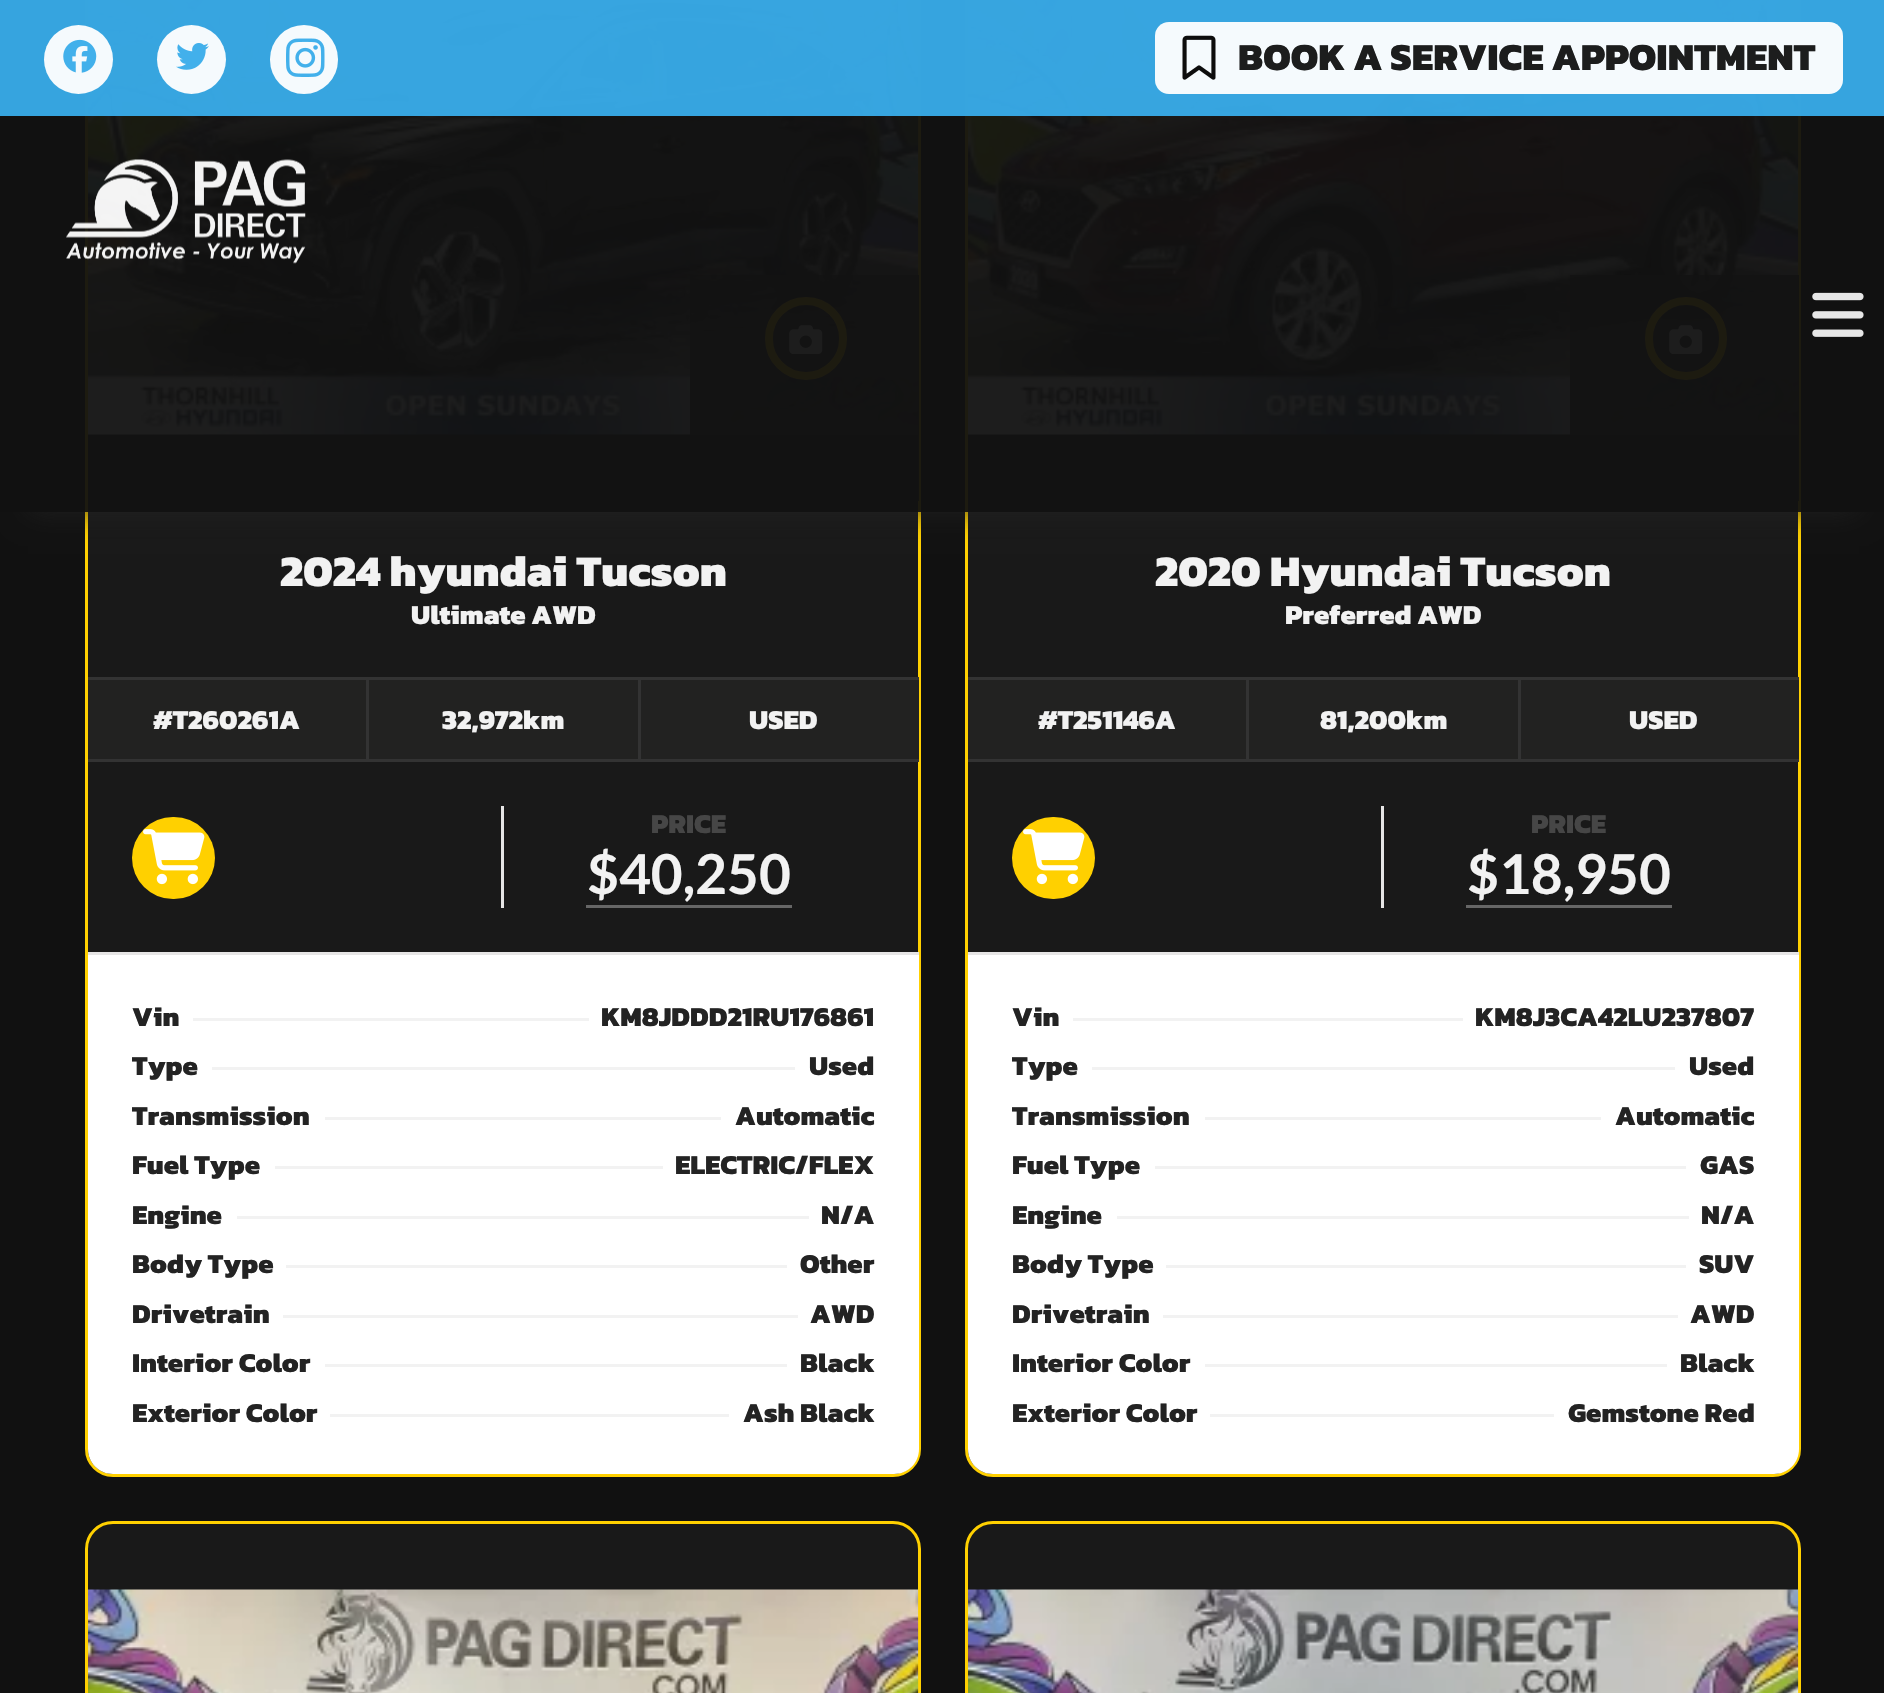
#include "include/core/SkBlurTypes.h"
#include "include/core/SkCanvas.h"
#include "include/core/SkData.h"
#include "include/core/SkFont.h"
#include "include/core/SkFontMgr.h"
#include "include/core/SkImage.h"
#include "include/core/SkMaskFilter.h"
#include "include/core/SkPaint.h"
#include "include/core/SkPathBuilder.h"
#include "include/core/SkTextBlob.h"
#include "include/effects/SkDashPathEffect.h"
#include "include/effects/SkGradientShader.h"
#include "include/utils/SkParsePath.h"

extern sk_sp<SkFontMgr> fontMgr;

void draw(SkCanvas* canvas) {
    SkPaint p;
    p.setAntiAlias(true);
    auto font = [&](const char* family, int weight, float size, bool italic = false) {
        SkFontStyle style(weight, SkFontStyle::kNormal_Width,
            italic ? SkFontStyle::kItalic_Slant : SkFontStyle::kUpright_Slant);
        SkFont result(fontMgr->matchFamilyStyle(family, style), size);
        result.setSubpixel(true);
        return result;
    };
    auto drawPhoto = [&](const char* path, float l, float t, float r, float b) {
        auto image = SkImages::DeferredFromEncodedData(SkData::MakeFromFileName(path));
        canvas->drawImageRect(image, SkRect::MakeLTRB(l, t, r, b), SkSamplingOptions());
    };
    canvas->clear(0xFF111111);
    p.setColor(0xFF191919);
    canvas->drawRoundRect(SkRect::MakeLTRB(86.5f, -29.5f, 919.5f, 1475.5f), 26.5f, 26.5f, p);
    p.setStyle(SkPaint::kStroke_Style);
    p.setStrokeWidth(3);
    p.setColor(0xFFFFD000);
    canvas->drawRoundRect(SkRect::MakeLTRB(86.5f, -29.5f, 919.5f, 1475.5f), 26.5f, 26.5f, p);
    drawPhoto("media/7.png", 88, 0, 919, 435);
    p.setStyle(SkPaint::kFill_Style);
    p.setColor(0xE6232323);
    canvas->drawRect(SkRect::MakeLTRB(690, 275, 919, 501), p);
    p.setStyle(SkPaint::kStroke_Style);
    p.setStrokeWidth(8);
    p.setColor(0xFFFFD000);
    canvas->drawRoundRect(SkRect::MakeLTRB(769, 301, 843, 376), 37, 37, p);
    drawPhoto("media/8.png", 789, 325, 823, 355);
    p.setStyle(SkPaint::kFill_Style);
    p.setColor(0xFF191919);
    canvas->drawRoundRect(SkRect::MakeLTRB(966.5f, -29.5f, 1799.5f, 1475.5f), 26.5f, 26.5f, p);
    p.setStyle(SkPaint::kStroke_Style);
    p.setStrokeWidth(3);
    p.setColor(0xFFFFD000);
    canvas->drawRoundRect(SkRect::MakeLTRB(966.5f, -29.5f, 1799.5f, 1475.5f), 26.5f, 26.5f, p);
    drawPhoto("media/10.png", 968, 0, 1799, 435);
    p.setStyle(SkPaint::kFill_Style);
    p.setColor(0xE6232323);
    canvas->drawRect(SkRect::MakeLTRB(1570, 275, 1799, 501), p);
    p.setStyle(SkPaint::kStroke_Style);
    p.setStrokeWidth(8);
    p.setColor(0xFFFFD000);
    canvas->drawRoundRect(SkRect::MakeLTRB(1649, 301, 1723, 376), 37, 37, p);
    drawPhoto("media/11.png", 1669, 325, 1703, 355);
    canvas->save();
    canvas->clipPath(SkPathBuilder(SkPathFillType::kEvenOdd).moveTo(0, 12).lineTo(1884, 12).lineTo(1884, 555).lineTo(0, 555).close().moveTo(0, 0).lineTo(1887, 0).lineTo(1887, 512).lineTo(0, 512).close().detach(), true);
    p.setStyle(SkPaint::kFill_Style);
    p.setColor(0xC2232323);
    p.setMaskFilter(SkMaskFilter::MakeBlur(kNormal_SkBlurStyle, 14));
    canvas->drawRect(SkRect::MakeLTRB(28, 55, 1859, 512), p);
    p.setMaskFilter(nullptr);
    canvas->restore();
    p.setColor(0xF2111111);
    canvas->drawRect(SkRect::MakeLTRB(38, 0, 1849, 512), p);
    p.setColor(0xF238ACEA);
    canvas->drawRect(SkRect::MakeLTRB(0, 0, 1884, 116), p);
    p.setColor(0xFFF5FAFD);
    canvas->drawCircle(78.5f, 59.5f, 34.5f, p);
    drawPhoto("media/1.png", 63, 39, 97, 73);
    canvas->drawCircle(191.5f, 59.5f, 34.5f, p);
    drawPhoto("media/2.png", 176, 43, 209, 70);
    canvas->drawRoundRect(SkRect::MakeLTRB(270, 25, 338, 94), 34, 34, p);
    drawPhoto("media/3.png", 286, 38, 325, 77);
    canvas->drawRoundRect(SkRect::MakeLTRB(1155, 22, 1843, 94), 14, 14, p);
    drawPhoto("media/4.png", 1182, 35, 1216, 80);
    auto font1 = font("Kanit", 800, 38.5f);
    p.setColor(0xFF1C1D1D);
    canvas->drawString("BOOK A SERVICE APPOINTMENT", 1238, 70, font1, p);
    drawPhoto("media/5.png", 66, 159, 306, 264);
    drawPhoto("media/6.png", 1812, 292, 1864, 337);
    auto font2 = font("Kanit", 800, 44);
    p.setColor(0xFFF2F2F2);
    canvas->drawString("2024 hyundai Tucson", 280, 586, font2, p);
    auto font3 = font("Kanit", 800, 27.5f);
    canvas->drawString("Ultimate AWD", 411, 624, font3, p);
    {
        const struct { float l, t, r, b; SkColor color; } items[] = {
            {88, 680, 919, 759, 0xFF222221},
            {88, 677, 919, 680, 0xFF333333},
            {88, 759, 919, 762, 0xFF333333},
        };
        for (auto [l, t, r, b, color] : items) {
            p.setColor(color);
            canvas->drawRect(SkRect::MakeLTRB(l, t, r, b), p);
        }
    }
    p.setColor(0xFFF2F2F2);
    canvas->drawString("#T260261A", 153, 729, font3, p);
    p.setColor(0xFF333333);
    canvas->drawRect(SkRect::MakeLTRB(638, 679, 641, 759), p);
    canvas->drawRect(SkRect::MakeLTRB(366, 679, 369, 759), p);
    p.setColor(0xFFF2F2F2);
    canvas->drawString("32,972km", 442, 729, font3, p);
    canvas->drawString("USED", 749, 729, font3, p);
    p.setColor(0xFFE6E5E5);
    canvas->drawRect(SkRect::MakeLTRB(501, 806, 504, 908), p);
    p.setColor(0xFFFFD000);
    canvas->drawRoundRect(SkRect::MakeLTRB(132, 817, 215, 899), 41, 41, p);
    drawPhoto("media/9.png", 143, 829, 205, 885);
    p.setColor(0xFF464646);
    canvas->drawString("PRICE", 651, 833, font3, p);
    p.setColor(0xFF666666);
    canvas->drawRect(SkRect::MakeLTRB(586, 905, 792, 908), p);
    auto font4 = font("Lato", 700, 55);
    p.setColor(0xFFF2F2F2);
    canvas->drawString("$40,250", 587, 894, font4, p);
    p.setColor(0xFFFFFFFF);
    canvas->drawPath(SkPathBuilder().moveTo(88, 952).lineTo(919, 952).lineTo(919, 1449).cubicTo(919, 1463, 908, 1474, 894, 1474).lineTo(113, 1474).cubicTo(99, 1474, 88, 1463, 88, 1449).close().detach(), p);
    p.setColor(0xFFE6E5E5);
    canvas->drawRect(SkRect::MakeLTRB(88, 952, 919, 955), p);
    p.setColor(0xFF232323);
    canvas->drawString("Vin", 132, 1026, font3, p);
    p.setColor(0xFFF2F2F2);
    canvas->drawRect(SkRect::MakeLTRB(193, 1018, 589, 1021), p);
    p.setColor(0xFF232323);
    canvas->drawString("KM8JDDD21RU176861", 601, 1026, font3, p);
    canvas->drawString("Type", 132, 1075, font3, p);
    p.setColor(0xFFF2F2F2);
    canvas->drawRect(SkRect::MakeLTRB(212, 1067, 795, 1070), p);
    p.setColor(0xFF232323);
    canvas->drawString("Used", 809, 1075, font3, p);
    canvas->drawString("Transmission", 132, 1125, font3, p);
    p.setColor(0xFFF2F2F2);
    canvas->drawRect(SkRect::MakeLTRB(325, 1117, 721, 1120), p);
    p.setColor(0xFF232323);
    canvas->drawString("Automatic", 735, 1125, font3, p);
    canvas->drawString("Fuel Type", 132, 1174, font3, p);
    p.setColor(0xFFF2F2F2);
    canvas->drawRect(SkRect::MakeLTRB(275, 1166, 663, 1169), p);
    p.setColor(0xFF232323);
    canvas->drawString("ELECTRIC/FLEX", 675, 1174, font3, p);
    canvas->drawString("Engine", 132, 1224, font3, p);
    p.setColor(0xFFF2F2F2);
    canvas->drawRect(SkRect::MakeLTRB(237, 1216, 809, 1219), p);
    p.setColor(0xFF232323);
    canvas->drawString("N/A", 821, 1224, font3, p);
    canvas->drawString("Body Type", 132, 1273, font3, p);
    p.setColor(0xFFF2F2F2);
    canvas->drawRect(SkRect::MakeLTRB(286, 1265, 787, 1268), p);
    p.setColor(0xFF232323);
    canvas->drawString("Other", 800, 1273, font3, p);
    canvas->drawString("Drivetrain", 132, 1323, font3, p);
    p.setColor(0xFFF2F2F2);
    canvas->drawRect(SkRect::MakeLTRB(283, 1315, 798, 1318), p);
    p.setColor(0xFF232323);
    canvas->drawString("AWD", 810, 1323, font3, p);
    canvas->drawString("Interior Color", 132, 1372, font3, p);
    p.setColor(0xFFF2F2F2);
    canvas->drawRect(SkRect::MakeLTRB(325, 1364, 787, 1367), p);
    p.setColor(0xFF232323);
    canvas->drawString("Black", 800, 1372, font3, p);
    canvas->drawString("Exterior Color", 132, 1422, font3, p);
    p.setColor(0xFFF2F2F2);
    canvas->drawRect(SkRect::MakeLTRB(330, 1414, 729, 1417), p);
    p.setColor(0xFF232323);
    canvas->drawString("Ash Black", 743, 1422, font3, p);
    p.setColor(0xFFF2F2F2);
    canvas->drawString("2020 Hyundai Tucson", 1155, 586, font2, p);
    canvas->drawString("Preferred AWD", 1285, 624, font3, p);
    {
        const struct { float l, t, r, b; SkColor color; } items[] = {
            {968, 680, 1799, 759, 0xFF222221},
            {968, 677, 1799, 680, 0xFF333333},
            {968, 759, 1799, 762, 0xFF333333},
        };
        for (auto [l, t, r, b, color] : items) {
            p.setColor(color);
            canvas->drawRect(SkRect::MakeLTRB(l, t, r, b), p);
        }
    }
    p.setColor(0xFFF2F2F2);
    canvas->drawString("#T251146A", 1038, 729, font3, p);
    p.setColor(0xFF333333);
    canvas->drawRect(SkRect::MakeLTRB(1518, 679, 1521, 759), p);
    canvas->drawRect(SkRect::MakeLTRB(1246, 679, 1249, 759), p);
    p.setColor(0xFFF2F2F2);
    canvas->drawString("81,200km", 1320, 729, font3, p);
    canvas->drawString("USED", 1629, 729, font3, p);
    p.setColor(0xFFE6E5E5);
    canvas->drawRect(SkRect::MakeLTRB(1381, 806, 1384, 908), p);
    p.setColor(0xFFFFD000);
    canvas->drawRoundRect(SkRect::MakeLTRB(1012, 817, 1095, 899), 41, 41, p);
    drawPhoto("media/9.png", 1023, 829, 1085, 885);
    p.setColor(0xFF464646);
    canvas->drawString("PRICE", 1531, 833, font3, p);
    p.setColor(0xFF666666);
    canvas->drawRect(SkRect::MakeLTRB(1466, 905, 1672, 908), p);
    p.setColor(0xFFF2F2F2);
    canvas->drawString("$18,950", 1467, 894, font4, p);
    p.setColor(0xFFFFFFFF);
    canvas->drawPath(SkPathBuilder().moveTo(968, 952).lineTo(1799, 952).lineTo(1799, 1449).cubicTo(1799, 1463, 1788, 1474, 1774, 1474).lineTo(993, 1474).cubicTo(979, 1474, 968, 1463, 968, 1449).close().detach(), p);
    p.setColor(0xFFE6E5E5);
    canvas->drawRect(SkRect::MakeLTRB(968, 952, 1799, 955), p);
    p.setColor(0xFF232323);
    canvas->drawString("Vin", 1012, 1026, font3, p);
    p.setColor(0xFFF2F2F2);
    canvas->drawRect(SkRect::MakeLTRB(1073, 1018, 1463, 1021), p);
    p.setColor(0xFF232323);
    canvas->drawString("KM8J3CA42LU237807", 1475, 1026, font3, p);
    canvas->drawString("Type", 1012, 1075, font3, p);
    p.setColor(0xFFF2F2F2);
    canvas->drawRect(SkRect::MakeLTRB(1092, 1067, 1675, 1070), p);
    p.setColor(0xFF232323);
    canvas->drawString("Used", 1689, 1075, font3, p);
    canvas->drawString("Transmission", 1012, 1125, font3, p);
    p.setColor(0xFFF2F2F2);
    canvas->drawRect(SkRect::MakeLTRB(1205, 1117, 1601, 1120), p);
    p.setColor(0xFF232323);
    canvas->drawString("Automatic", 1615, 1125, font3, p);
    canvas->drawString("Fuel Type", 1012, 1174, font3, p);
    p.setColor(0xFFF2F2F2);
    canvas->drawRect(SkRect::MakeLTRB(1155, 1166, 1686, 1169), p);
    p.setColor(0xFF232323);
    canvas->drawString("GAS", 1700, 1174, font3, p);
    canvas->drawString("Engine", 1012, 1224, font3, p);
    p.setColor(0xFFF2F2F2);
    canvas->drawRect(SkRect::MakeLTRB(1117, 1216, 1689, 1219), p);
    p.setColor(0xFF232323);
    canvas->drawString("N/A", 1701, 1224, font3, p);
    canvas->drawString("Body Type", 1012, 1273, font3, p);
    p.setColor(0xFFF2F2F2);
    canvas->drawRect(SkRect::MakeLTRB(1166, 1265, 1686, 1268), p);
    p.setColor(0xFF232323);
    canvas->drawString("SUV", 1699, 1273, font3, p);
    canvas->drawString("Drivetrain", 1012, 1323, font3, p);
    p.setColor(0xFFF2F2F2);
    canvas->drawRect(SkRect::MakeLTRB(1163, 1315, 1678, 1318), p);
    p.setColor(0xFF232323);
    canvas->drawString("AWD", 1690, 1323, font3, p);
    canvas->drawString("Interior Color", 1012, 1372, font3, p);
    p.setColor(0xFFF2F2F2);
    canvas->drawRect(SkRect::MakeLTRB(1205, 1364, 1667, 1367), p);
    p.setColor(0xFF232323);
    canvas->drawString("Black", 1680, 1372, font3, p);
    canvas->drawString("Exterior Color", 1012, 1422, font3, p);
    p.setColor(0xFFF2F2F2);
    canvas->drawRect(SkRect::MakeLTRB(1210, 1414, 1554, 1417), p);
    p.setColor(0xFF232323);
    canvas->drawString("Gemstone Red", 1568, 1422, font3, p);
    p.setColor(0xFF191919);
    canvas->drawRoundRect(SkRect::MakeLTRB(86.5f, 1522.5f, 919.5f, 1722.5f), 26.5f, 26.5f, p);
    p.setStyle(SkPaint::kStroke_Style);
    p.setStrokeWidth(3);
    p.setColor(0xFFFFD000);
    canvas->drawRoundRect(SkRect::MakeLTRB(86.5f, 1522.5f, 919.5f, 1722.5f), 26.5f, 26.5f, p);
    drawPhoto("media/12.png", 88, 1589, 919, 1693);
    p.setStyle(SkPaint::kFill_Style);
    p.setColor(0xFF191919);
    canvas->drawRoundRect(SkRect::MakeLTRB(966.5f, 1522.5f, 1799.5f, 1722.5f), 26.5f, 26.5f, p);
    p.setStyle(SkPaint::kStroke_Style);
    p.setColor(0xFFFFD000);
    canvas->drawRoundRect(SkRect::MakeLTRB(966.5f, 1522.5f, 1799.5f, 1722.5f), 26.5f, 26.5f, p);
    drawPhoto("media/13.png", 968, 1589, 1799, 1693);
}
